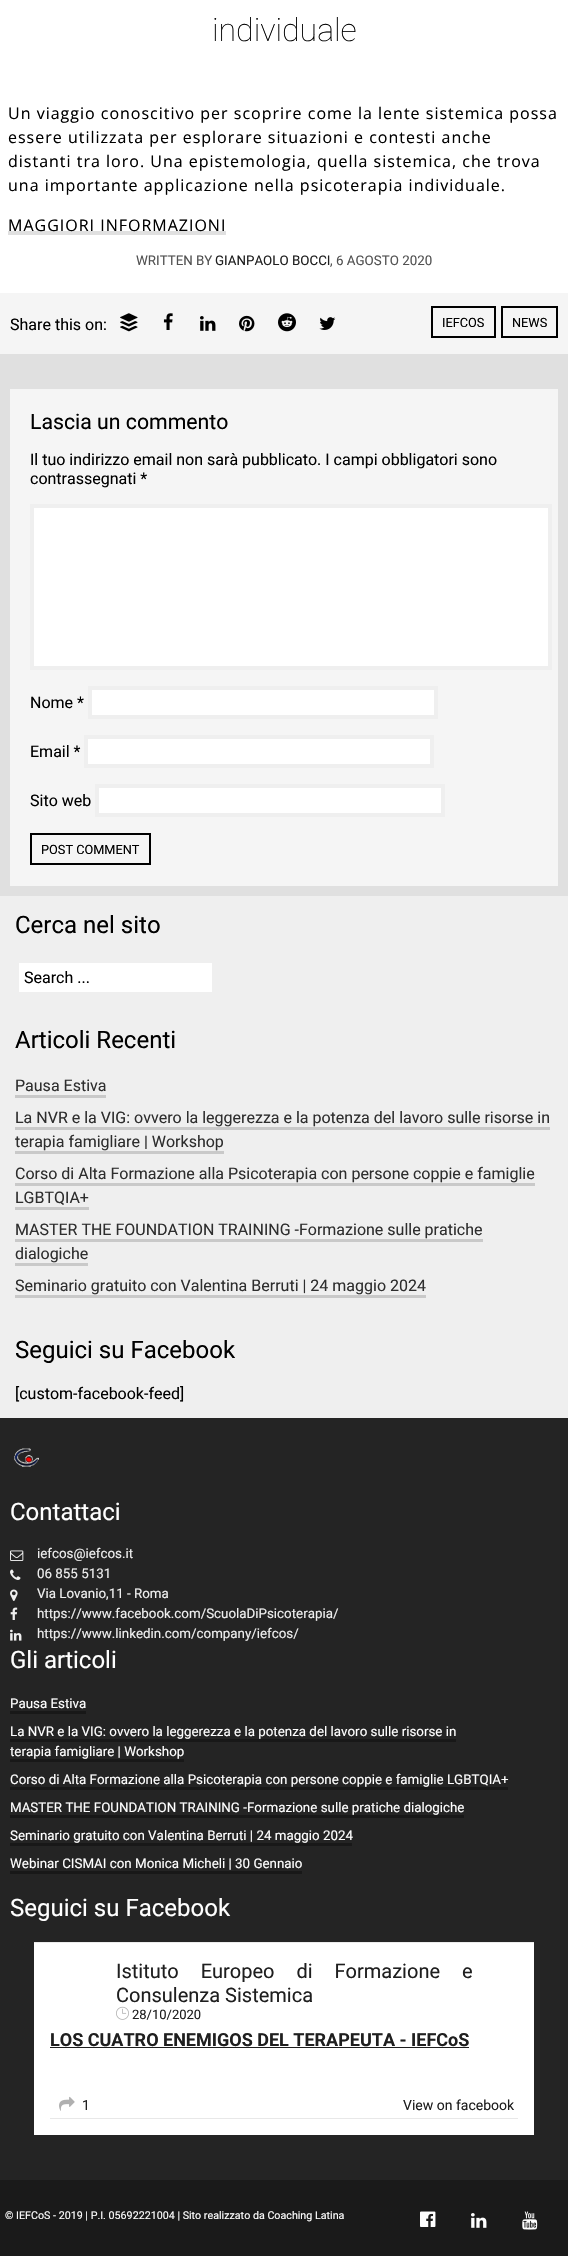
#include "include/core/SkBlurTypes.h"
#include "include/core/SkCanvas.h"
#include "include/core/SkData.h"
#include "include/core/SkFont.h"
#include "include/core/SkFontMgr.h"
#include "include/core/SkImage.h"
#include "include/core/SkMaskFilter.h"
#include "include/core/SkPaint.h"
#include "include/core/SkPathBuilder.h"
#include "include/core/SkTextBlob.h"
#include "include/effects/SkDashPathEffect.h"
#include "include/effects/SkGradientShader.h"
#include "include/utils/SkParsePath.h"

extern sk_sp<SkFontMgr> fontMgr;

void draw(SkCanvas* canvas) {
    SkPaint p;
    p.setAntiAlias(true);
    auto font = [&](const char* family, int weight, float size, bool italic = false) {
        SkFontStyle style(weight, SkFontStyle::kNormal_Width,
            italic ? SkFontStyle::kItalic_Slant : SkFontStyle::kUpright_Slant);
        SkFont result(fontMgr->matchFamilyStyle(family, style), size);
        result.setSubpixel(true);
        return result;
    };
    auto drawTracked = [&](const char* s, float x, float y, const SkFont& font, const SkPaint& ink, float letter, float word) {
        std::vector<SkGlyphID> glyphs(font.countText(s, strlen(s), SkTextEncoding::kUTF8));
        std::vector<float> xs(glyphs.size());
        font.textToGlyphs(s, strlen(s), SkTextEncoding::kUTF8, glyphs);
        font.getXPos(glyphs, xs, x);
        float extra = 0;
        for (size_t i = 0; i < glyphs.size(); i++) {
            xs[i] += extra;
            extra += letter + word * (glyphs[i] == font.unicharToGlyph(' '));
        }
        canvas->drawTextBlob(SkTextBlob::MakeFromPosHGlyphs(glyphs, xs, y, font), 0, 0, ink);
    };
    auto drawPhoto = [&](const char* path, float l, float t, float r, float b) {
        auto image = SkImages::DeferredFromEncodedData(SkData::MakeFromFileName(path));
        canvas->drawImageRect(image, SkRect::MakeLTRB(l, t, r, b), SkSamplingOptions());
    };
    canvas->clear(0xFF242424);
    p.setColor(0xFFFFFFFF);
    canvas->drawRect(SkRect::MakeLTRB(0, 0, 568, 293), p);
    auto font1 = font("Roboto", 100, 32);
    p.setColor(0xFF000000);
    canvas->drawString("individuale", 212, 41, font1, p);
    auto font2 = font("Open Sans", 400, 16);
    {
        const struct { const char* s; float x, y; } items[] = {
            {"Un viaggio conoscitivo per scoprire come la lente sistemica possa", 8, 119},
            {"essere utilizzata per esplorare situazioni e contesti anche", 8, 143},
            {"distanti tra loro. Una epistemologia, quella sistemica, che trova", 8, 167},
            {"una importante applicazione nella psicoterapia individuale.", 8, 191},
        };
        for (auto [s, x, y] : items) {
            drawTracked(s, x, y, font2, p, 1, 0);
        }
    }
    p.setColor(0xFFE0E0E0);
    canvas->drawRect(SkRect::MakeLTRB(8, 231, 226, 235), p);
    p.setColor(0xFF000000);
    drawTracked("MAGGIORI INFORMAZIONI", 8, 231, font2, p, 1, 0);
    auto font3 = font("Roboto", 400, 13.35f);
    p.setColor(0xFF525252);
    canvas->drawString("WRITTEN BY", 136, 265, font3, p);
    p.setColor(0xFF1F1F1F);
    canvas->drawString("GIANPAOLO BOCCI", 215, 265, font3, p);
    p.setColor(0xFF525252);
    canvas->drawString(", 6 AGOSTO 2020", 330, 265, font3, p);
    p.setColor(0xFFF5F5F5);
    canvas->drawRect(SkRect::MakeLTRB(0, 293, 568, 354), p);
    auto font4 = font("Roboto", 400, 16);
    p.setColor(0xFF000000);
    canvas->drawString("Share this on:", 10, 330, font4, p);
    drawPhoto("media/1.png", 120, 313, 138, 332);
    drawPhoto("media/2.png", 163, 313, 173, 330);
    drawPhoto("media/3.png", 200, 316, 216, 331);
    drawPhoto("media/4.png", 239, 315, 255, 332);
    drawPhoto("media/5.png", 278, 313, 296, 332);
    drawPhoto("media/6.png", 319, 317, 336, 330);
    p.setStyle(SkPaint::kStroke_Style);
    p.setStrokeWidth(2);
    canvas->drawRect(SkRect::MakeLTRB(432, 307, 495, 337), p);
    auto font5 = font("Roboto", 400, 12.75f);
    p.setStyle(SkPaint::kFill_Style);
    canvas->drawString("IEFCOS", 442, 327, font5, p);
    p.setStyle(SkPaint::kStroke_Style);
    canvas->drawRect(SkRect::MakeLTRB(502, 307, 557, 337), p);
    p.setStyle(SkPaint::kFill_Style);
    canvas->drawString("NEWS", 512, 327, font5, p);
    p.setColor(0xFFE0E0E0);
    canvas->drawRect(SkRect::MakeLTRB(0, 354, 568, 896), p);
    p.setColor(0xFFF5F5F5);
    canvas->drawRect(SkRect::MakeLTRB(10, 389, 558, 886), p);
    auto font6 = font("Roboto", 400, 21.25f);
    p.setColor(0xFF000000);
    canvas->drawString("Lascia un commento", 30, 429, font6, p);
    canvas->drawString("Il tuo indirizzo email non sarà pubblicato. I campi obbligatori sono", 30, 465, font4, p);
    canvas->drawString("contrassegnati *", 30, 484, font4, p);
    p.setColor(0xFFFFFFFF);
    canvas->drawRect(SkRect::MakeLTRB(32, 506, 550, 668), p);
    p.setStyle(SkPaint::kStroke_Style);
    p.setStrokeWidth(4);
    p.setColor(0xFFEFEFEF);
    canvas->drawRect(SkRect::MakeLTRB(32, 506, 550, 668), p);
    p.setStyle(SkPaint::kFill_Style);
    p.setColor(0xFF000000);
    canvas->drawString("Nome *", 30, 708, font4, p);
    p.setColor(0xFFFFFFFF);
    canvas->drawRect(SkRect::MakeLTRB(90, 688, 436, 717), p);
    p.setStyle(SkPaint::kStroke_Style);
    p.setColor(0xFFEFEFEF);
    canvas->drawRect(SkRect::MakeLTRB(90, 688, 436, 717), p);
    p.setStyle(SkPaint::kFill_Style);
    p.setColor(0xFF000000);
    canvas->drawString("Email *", 30, 757, font4, p);
    p.setColor(0xFFFFFFFF);
    canvas->drawRect(SkRect::MakeLTRB(86, 737, 432, 766), p);
    p.setStyle(SkPaint::kStroke_Style);
    p.setColor(0xFFEFEFEF);
    canvas->drawRect(SkRect::MakeLTRB(86, 737, 432, 766), p);
    p.setStyle(SkPaint::kFill_Style);
    p.setColor(0xFF000000);
    canvas->drawString("Sito web", 30, 806, font4, p);
    p.setColor(0xFFFFFFFF);
    canvas->drawRect(SkRect::MakeLTRB(97, 786, 443, 815), p);
    p.setStyle(SkPaint::kStroke_Style);
    p.setColor(0xFFEFEFEF);
    canvas->drawRect(SkRect::MakeLTRB(97, 786, 443, 815), p);
    p.setStrokeWidth(2);
    p.setColor(0xFF000000);
    canvas->drawRect(SkRect::MakeLTRB(31, 834, 150, 864), p);
    p.setStyle(SkPaint::kFill_Style);
    canvas->drawString("POST COMMENT", 41, 854, font5, p);
    p.setColor(0xFFEFEFEF);
    canvas->drawRect(SkRect::MakeLTRB(0, 896, 568, 1418), p);
    auto font7 = font("Roboto", 400, 24);
    p.setColor(0xFF000000);
    canvas->drawString("Cerca nel sito", 15, 933, font7, p);
    p.setColor(0xFFFFFFFF);
    canvas->drawRect(SkRect::MakeLTRB(19, 963, 212, 992), p);
    p.setColor(0xFF000000);
    canvas->drawString("Search ...", 24, 983, font4, p);
    canvas->drawString("Articoli Recenti", 15, 1048, font7, p);
    p.setColor(0xFF2E2E2E);
    canvas->drawString("Pausa Estiva", 15, 1091, font4, p);
    p.setColor(0xFFC9C9C9);
    canvas->drawRect(SkRect::MakeLTRB(15, 1095, 106, 1098), p);
    p.setColor(0xFF2E2E2E);
    canvas->drawString("La NVR e la VIG: ovvero la leggerezza e la potenza del lavoro sulle risorse in", 15, 1123, font4, p);
    p.setColor(0xFFC9C9C9);
    canvas->drawRect(SkRect::MakeLTRB(15, 1127, 550, 1130), p);
    p.setColor(0xFF2E2E2E);
    canvas->drawString("terapia famigliare | Workshop", 15, 1147, font4, p);
    p.setColor(0xFFC9C9C9);
    canvas->drawRect(SkRect::MakeLTRB(15, 1151, 224, 1154), p);
    p.setColor(0xFF2E2E2E);
    canvas->drawString("Corso di Alta Formazione alla Psicoterapia con persone coppie e famiglie", 15, 1179, font4, p);
    p.setColor(0xFFC9C9C9);
    canvas->drawRect(SkRect::MakeLTRB(15, 1183, 535, 1186), p);
    p.setColor(0xFF2E2E2E);
    canvas->drawString("LGBTQIA+", 15, 1203, font4, p);
    p.setColor(0xFFC9C9C9);
    canvas->drawRect(SkRect::MakeLTRB(15, 1207, 89, 1210), p);
    p.setColor(0xFF2E2E2E);
    canvas->drawString("MASTER THE FOUNDATION TRAINING -Formazione sulle pratiche", 15, 1235, font4, p);
    p.setColor(0xFFC9C9C9);
    canvas->drawRect(SkRect::MakeLTRB(15, 1239, 483, 1242), p);
    p.setColor(0xFF2E2E2E);
    canvas->drawString("dialogiche", 15, 1259, font4, p);
    p.setColor(0xFFC9C9C9);
    canvas->drawRect(SkRect::MakeLTRB(15, 1263, 88, 1266), p);
    p.setColor(0xFF2E2E2E);
    canvas->drawString("Seminario gratuito con Valentina Berruti | 24 maggio 2024", 15, 1291, font4, p);
    p.setColor(0xFFC9C9C9);
    canvas->drawRect(SkRect::MakeLTRB(15, 1295, 426, 1298), p);
    p.setColor(0xFF000000);
    canvas->drawString("Seguici su Facebook", 15, 1358, font7, p);
    canvas->drawString("[custom-facebook-feed]", 15, 1399, font4, p);
    drawPhoto("media/7.png", 14, 1448, 39, 1467);
    p.setColor(0xFFFFFFFF);
    canvas->drawString("Contattaci", 10, 1520, font7, p);
    drawPhoto("media/8.png", 10, 1550, 24, 1561);
    p.setColor(0xFFEFEFEF);
    canvas->drawString("iefcos@iefcos.it", 37, 1558, font3, p);
    drawPhoto("media/9.png", 10, 1569, 21, 1580);
    canvas->drawString("06 855 5131", 37, 1578, font3, p);
    drawPhoto("media/10.png", 10, 1589, 18, 1601);
    canvas->drawString("Via Lovanio,11 - Roma", 37, 1598, font3, p);
    drawPhoto("media/11.png", 10, 1607, 18, 1620);
    canvas->drawString("https://www.facebook.com/ScuolaDiPsicoterapia/", 37, 1618, font3, p);
    drawPhoto("media/12.png", 10, 1629, 22, 1641);
    canvas->drawString("https://www.linkedin.com/company/iefcos/", 37, 1638, font3, p);
    p.setColor(0xFFFFFFFF);
    canvas->drawString("Gli articoli", 10, 1668, font7, p);
    canvas->drawString("Pausa Estiva", 10, 1708, font3, p);
    p.setColor(0xFF181818);
    canvas->drawRect(SkRect::MakeLTRB(10, 1711, 86, 1714), p);
    p.setColor(0xFFFFFFFF);
    canvas->drawString("La NVR e la VIG: ovvero la leggerezza e la potenza del lavoro sulle risorse in", 10, 1736, font3, p);
    p.setColor(0xFF181818);
    canvas->drawRect(SkRect::MakeLTRB(10, 1739, 456, 1742), p);
    p.setColor(0xFFFFFFFF);
    canvas->drawString("terapia famigliare | Workshop", 10, 1756, font3, p);
    p.setColor(0xFF181818);
    canvas->drawRect(SkRect::MakeLTRB(10, 1759, 184, 1762), p);
    p.setColor(0xFFFFFFFF);
    canvas->drawString("Corso di Alta Formazione alla Psicoterapia con persone coppie e famiglie LGBTQIA+", 10, 1784, font3, p);
    p.setColor(0xFF181818);
    canvas->drawRect(SkRect::MakeLTRB(10, 1787, 508, 1790), p);
    p.setColor(0xFFFFFFFF);
    canvas->drawString("MASTER THE FOUNDATION TRAINING -Formazione sulle pratiche dialogiche", 10, 1812, font3, p);
    p.setColor(0xFF181818);
    canvas->drawRect(SkRect::MakeLTRB(10, 1815, 464, 1818), p);
    p.setColor(0xFFFFFFFF);
    canvas->drawString("Seminario gratuito con Valentina Berruti | 24 maggio 2024", 10, 1840, font3, p);
    p.setColor(0xFF181818);
    canvas->drawRect(SkRect::MakeLTRB(10, 1843, 352, 1846), p);
    p.setColor(0xFFFFFFFF);
    canvas->drawString("Webinar CISMAI con Monica Micheli | 30 Gennaio", 10, 1868, font3, p);
    p.setColor(0xFF181818);
    canvas->drawRect(SkRect::MakeLTRB(10, 1871, 302, 1874), p);
    p.setColor(0xFFFFFFFF);
    canvas->drawString("Seguici su Facebook", 10, 1916, font7, p);
    canvas->drawRect(SkRect::MakeLTRB(34, 1943, 534, 2135), p);
    p.setColor(0xFFEBEBEB);
    canvas->drawRect(SkRect::MakeLTRB(34, 1942, 534, 1943), p);
    auto font8 = font("Roboto", 400, 20);
    p.setColor(0xFF1F1F1F);
    drawTracked("Istituto Europeo di Formazione e", 116, 1978, font8, p, 0, 17);
    canvas->drawString("Consulenza Sistemica", 116, 2002, font8, p);
    drawPhoto("media/13.png", 116, 2006, 129, 2020);
    auto font9 = font("Roboto", 400, 13);
    canvas->drawString("28/10/2020", 132, 2019, font9, p);
    auto font10 = font("Roboto", 700, 18);
    canvas->drawString("LOS CUATRO ENEMIGOS DEL TERAPEUTA - IEFCoS", 50, 2046, font10, p);
    p.setColor(0xFF1C1C1C);
    canvas->drawRect(SkRect::MakeLTRB(50, 2047, 469, 2048), p);
    p.setColor(0xFFE8E8E8);
    canvas->drawRect(SkRect::MakeLTRB(50, 2118, 518, 2119), p);
    drawPhoto("media/14.png", 59, 2096, 75, 2111);
    auto font11 = font("Roboto", 400, 14);
    p.setColor(0xFF1F1F1F);
    canvas->drawString("1", 82, 2110, font11, p);
    canvas->drawString("View on facebook", 403, 2110, font11, p);
    p.setColor(0xFF1A1A1A);
    canvas->drawRect(SkRect::MakeLTRB(0, 2180, 568, 2256), p);
    auto font12 = font("Roboto", 400, 10.7f);
    p.setColor(0xFFFFFFFF);
    canvas->drawString("© IEFCoS - 2019 | P.I. 05692221004 | Sito realizzato da Coaching Latina", 5, 2219, font12, p);
    drawPhoto("media/15.png", 420, 2211, 436, 2227);
    drawPhoto("media/16.png", 471, 2213, 487, 2228);
    drawPhoto("media/17.png", 522, 2211, 538, 2230);
}
